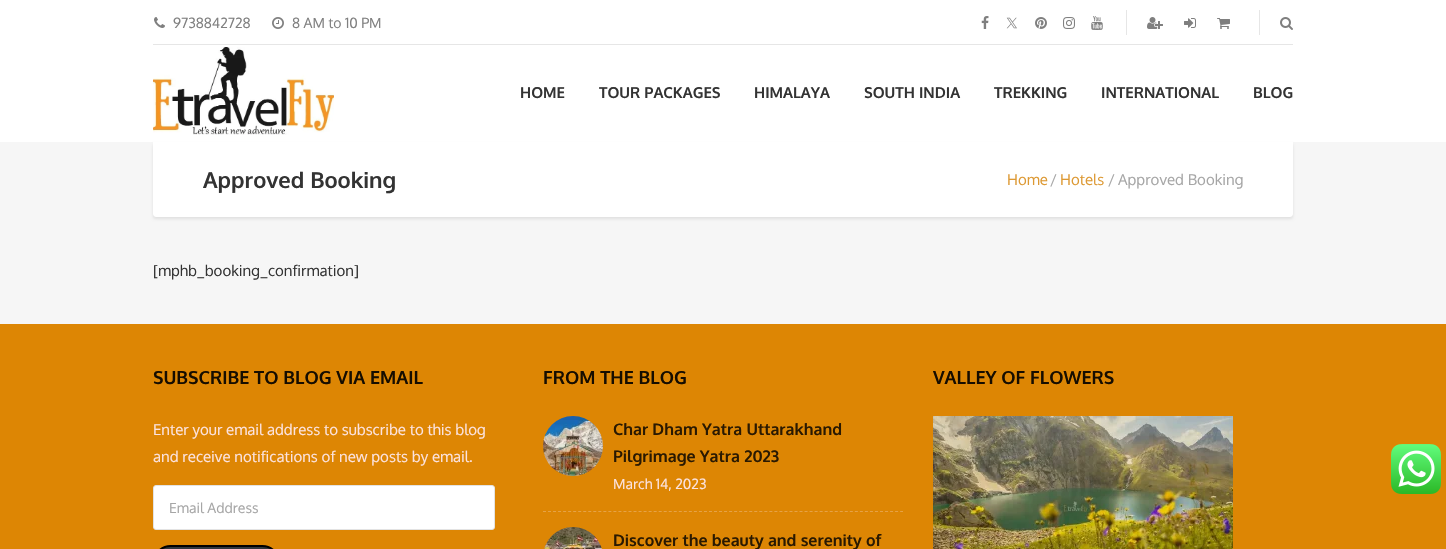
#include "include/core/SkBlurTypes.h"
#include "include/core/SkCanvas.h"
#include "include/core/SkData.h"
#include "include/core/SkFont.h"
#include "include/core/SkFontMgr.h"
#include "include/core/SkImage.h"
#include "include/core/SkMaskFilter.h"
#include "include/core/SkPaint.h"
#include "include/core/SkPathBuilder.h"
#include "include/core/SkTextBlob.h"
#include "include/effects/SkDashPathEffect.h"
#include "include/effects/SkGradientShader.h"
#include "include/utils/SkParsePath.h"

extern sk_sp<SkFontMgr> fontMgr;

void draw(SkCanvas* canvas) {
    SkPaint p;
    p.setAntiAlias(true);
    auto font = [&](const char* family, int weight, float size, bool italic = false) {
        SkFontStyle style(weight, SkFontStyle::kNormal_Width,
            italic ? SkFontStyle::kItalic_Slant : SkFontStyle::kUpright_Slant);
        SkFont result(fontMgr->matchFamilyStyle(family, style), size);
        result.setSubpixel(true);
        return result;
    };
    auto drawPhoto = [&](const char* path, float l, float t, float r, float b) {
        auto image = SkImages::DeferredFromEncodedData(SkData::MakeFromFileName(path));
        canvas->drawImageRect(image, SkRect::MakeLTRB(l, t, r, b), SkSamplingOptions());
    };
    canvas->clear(0xFFF6F6F6);
    p.setColor(0xFFFFFFFF);
    canvas->drawRect(SkRect::MakeLTRB(0, 0, 1446, 142), p);
    drawPhoto("media/1.png", 154, 17, 165, 28);
    auto font1 = font("Oxygen", 400, 14);
    p.setColor(0xFF808080);
    canvas->drawString("9738842728", 173, 28, font1, p);
    drawPhoto("media/2.png", 272, 17, 284, 29);
    canvas->drawString("8 AM to 10 PM", 292, 28, font1, p);
    drawPhoto("media/3.png", 981, 16, 989, 29);
    drawPhoto("media/4.png", 1006, 17, 1017, 29);
    drawPhoto("media/5.png", 1035, 17, 1047, 29);
    drawPhoto("media/6.png", 1063, 17, 1075, 29);
    drawPhoto("media/7.png", 1091, 16, 1103, 30);
    p.setColor(0xFFE6E6E6);
    canvas->drawRect(SkRect::MakeLTRB(1126, 10, 1127, 35), p);
    drawPhoto("media/8.png", 1147, 17, 1163, 29);
    drawPhoto("media/9.png", 1184, 18, 1196, 28);
    drawPhoto("media/10.png", 1217, 18, 1230, 29);
    canvas->drawRect(SkRect::MakeLTRB(1259, 10, 1260, 35), p);
    drawPhoto("media/11.png", 1280, 17, 1293, 30);
    canvas->drawRect(SkRect::MakeLTRB(153, 44, 1293, 45), p);
    drawPhoto("media/12.png", 153, 47, 334, 135);
    auto font2 = font("Oxygen", 700, 15);
    p.setColor(0xFF333333);
    {
        const struct { const char* s; float x, y; } items[] = {
            {"HOME", 520, 98},
            {"TOUR PACKAGES", 599, 98},
            {"HIMALAYA", 754, 98},
            {"SOUTH INDIA", 864, 98},
            {"TREKKING", 994, 98},
            {"INTERNATIONAL", 1101, 98},
            {"BLOG", 1253, 98},
        };
        for (auto [s, x, y] : items) {
            canvas->drawString(s, x, y, font2, p);
        }
    }
    p.setColor(0x17000000);
    p.setMaskFilter(SkMaskFilter::MakeBlur(kNormal_SkBlurStyle, 1.5f));
    canvas->drawRoundRect(SkRect::MakeLTRB(153, 144, 1293, 219), 3, 3, p);
    p.setMaskFilter(nullptr);
    p.setColor(0xFFFFFFFF);
    canvas->drawPath(SkPathBuilder().moveTo(153, 142).lineTo(1293, 142).lineTo(1293, 214).cubicTo(1293, 215.5f, 1291.5f, 217, 1290, 217).lineTo(156, 217).cubicTo(154.5f, 217, 153, 215.5f, 153, 214).close().detach(), p);
    auto font3 = font("Oxygen", 700, 22);
    p.setColor(0xFF333333);
    canvas->drawString("Approved Booking", 203, 188, font3, p);
    auto font4 = font("Oxygen", 400, 15);
    p.setColor(0xFFDD9933);
    canvas->drawString("Home", 1007, 185, font4, p);
    p.setColor(0xFFA6A6A6);
    canvas->drawString("/", 1050, 185, font4, p);
    p.setColor(0xFFDD9933);
    canvas->drawString("Hotels", 1060, 185, font4, p);
    p.setColor(0xFFA6A6A6);
    canvas->drawString("/", 1108, 185, font4, p);
    canvas->drawString("Approved Booking", 1118, 185, font4, p);
    p.setColor(0xFF333333);
    canvas->drawString("[mphb_booking_confirmation]", 153, 276, font4, p);
    p.setColor(0xFFDD8604);
    canvas->drawRect(SkRect::MakeLTRB(0, 324, 1446, 549), p);
    auto font5 = font("Oxygen", 700, 18);
    p.setColor(0xFF160D00);
    canvas->drawString("SUBSCRIBE TO BLOG VIA EMAIL", 153, 384, font5, p);
    p.setColor(0xFFFCE3E0);
    canvas->drawString("Enter your email address to subscribe to this blog", 153, 435, font4, p);
    canvas->drawString("and receive notifications of new posts by email.", 153, 462, font4, p);
    p.setColor(0xFFFFFFFF);
    canvas->drawRoundRect(SkRect::MakeLTRB(153.5f, 485.5f, 494.5f, 529.5f), 2.5f, 2.5f, p);
    p.setStyle(SkPaint::kStroke_Style);
    p.setStrokeWidth(1);
    p.setColor(0xFFE3E3E3);
    canvas->drawRoundRect(SkRect::MakeLTRB(153.5f, 485.5f, 494.5f, 529.5f), 2.5f, 2.5f, p);
    p.setStyle(SkPaint::kFill_Style);
    p.setColor(0xFFA6A6A6);
    canvas->drawString("Email Address", 169, 513, font1, p);
    p.setColor(0xFF32373C);
    canvas->drawRoundRect(SkRect::MakeLTRB(154, 546, 279, 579), 28, 28, p);
    p.setStyle(SkPaint::kStroke_Style);
    p.setStrokeWidth(2);
    p.setColor(0xFF000000);
    canvas->drawRoundRect(SkRect::MakeLTRB(154, 546, 279, 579), 28, 28, p);
    p.setStyle(SkPaint::kFill_Style);
    p.setColor(0xFF160D00);
    canvas->drawString("FROM THE BLOG", 543, 384, font5, p);
    drawPhoto("media/13.png", 543, 416, 603, 476);
    auto font6 = font("Oxygen", 700, 16);
    p.setColor(0xFF2A1901);
    canvas->drawString("Char Dham Yatra Uttarakhand", 613, 435, font6, p);
    canvas->drawString("Pilgrimage Yatra 2023", 613, 462, font6, p);
    p.setColor(0xFFFCE3E0);
    canvas->drawString("March 14, 2023", 613, 489, font1, p);
    p.setStyle(SkPaint::kStroke_Style);
    p.setStrokeWidth(1);
    p.setColor(0xFFE6A246);
    p.setPathEffect(SkDashPathEffect::Make({{3, 2.03f}}, 0));
    canvas->drawPath(SkPathBuilder().moveTo(543, 511.5f).lineTo(903, 511.5f).detach(), p);
    p.setPathEffect(nullptr);
    drawPhoto("media/14.png", 544, 527, 602, 549);
    p.setStyle(SkPaint::kFill_Style);
    p.setColor(0xFF2A1901);
    canvas->drawString("Discover the beauty and serenity of", 613, 546, font6, p);
    p.setColor(0xFF160D00);
    canvas->drawString("VALLEY OF FLOWERS", 933, 384, font5, p);
    drawPhoto("media/15.png", 933, 416, 1233, 549);
    drawPhoto("media/16.png", 1391, 444, 1441, 494);
}
